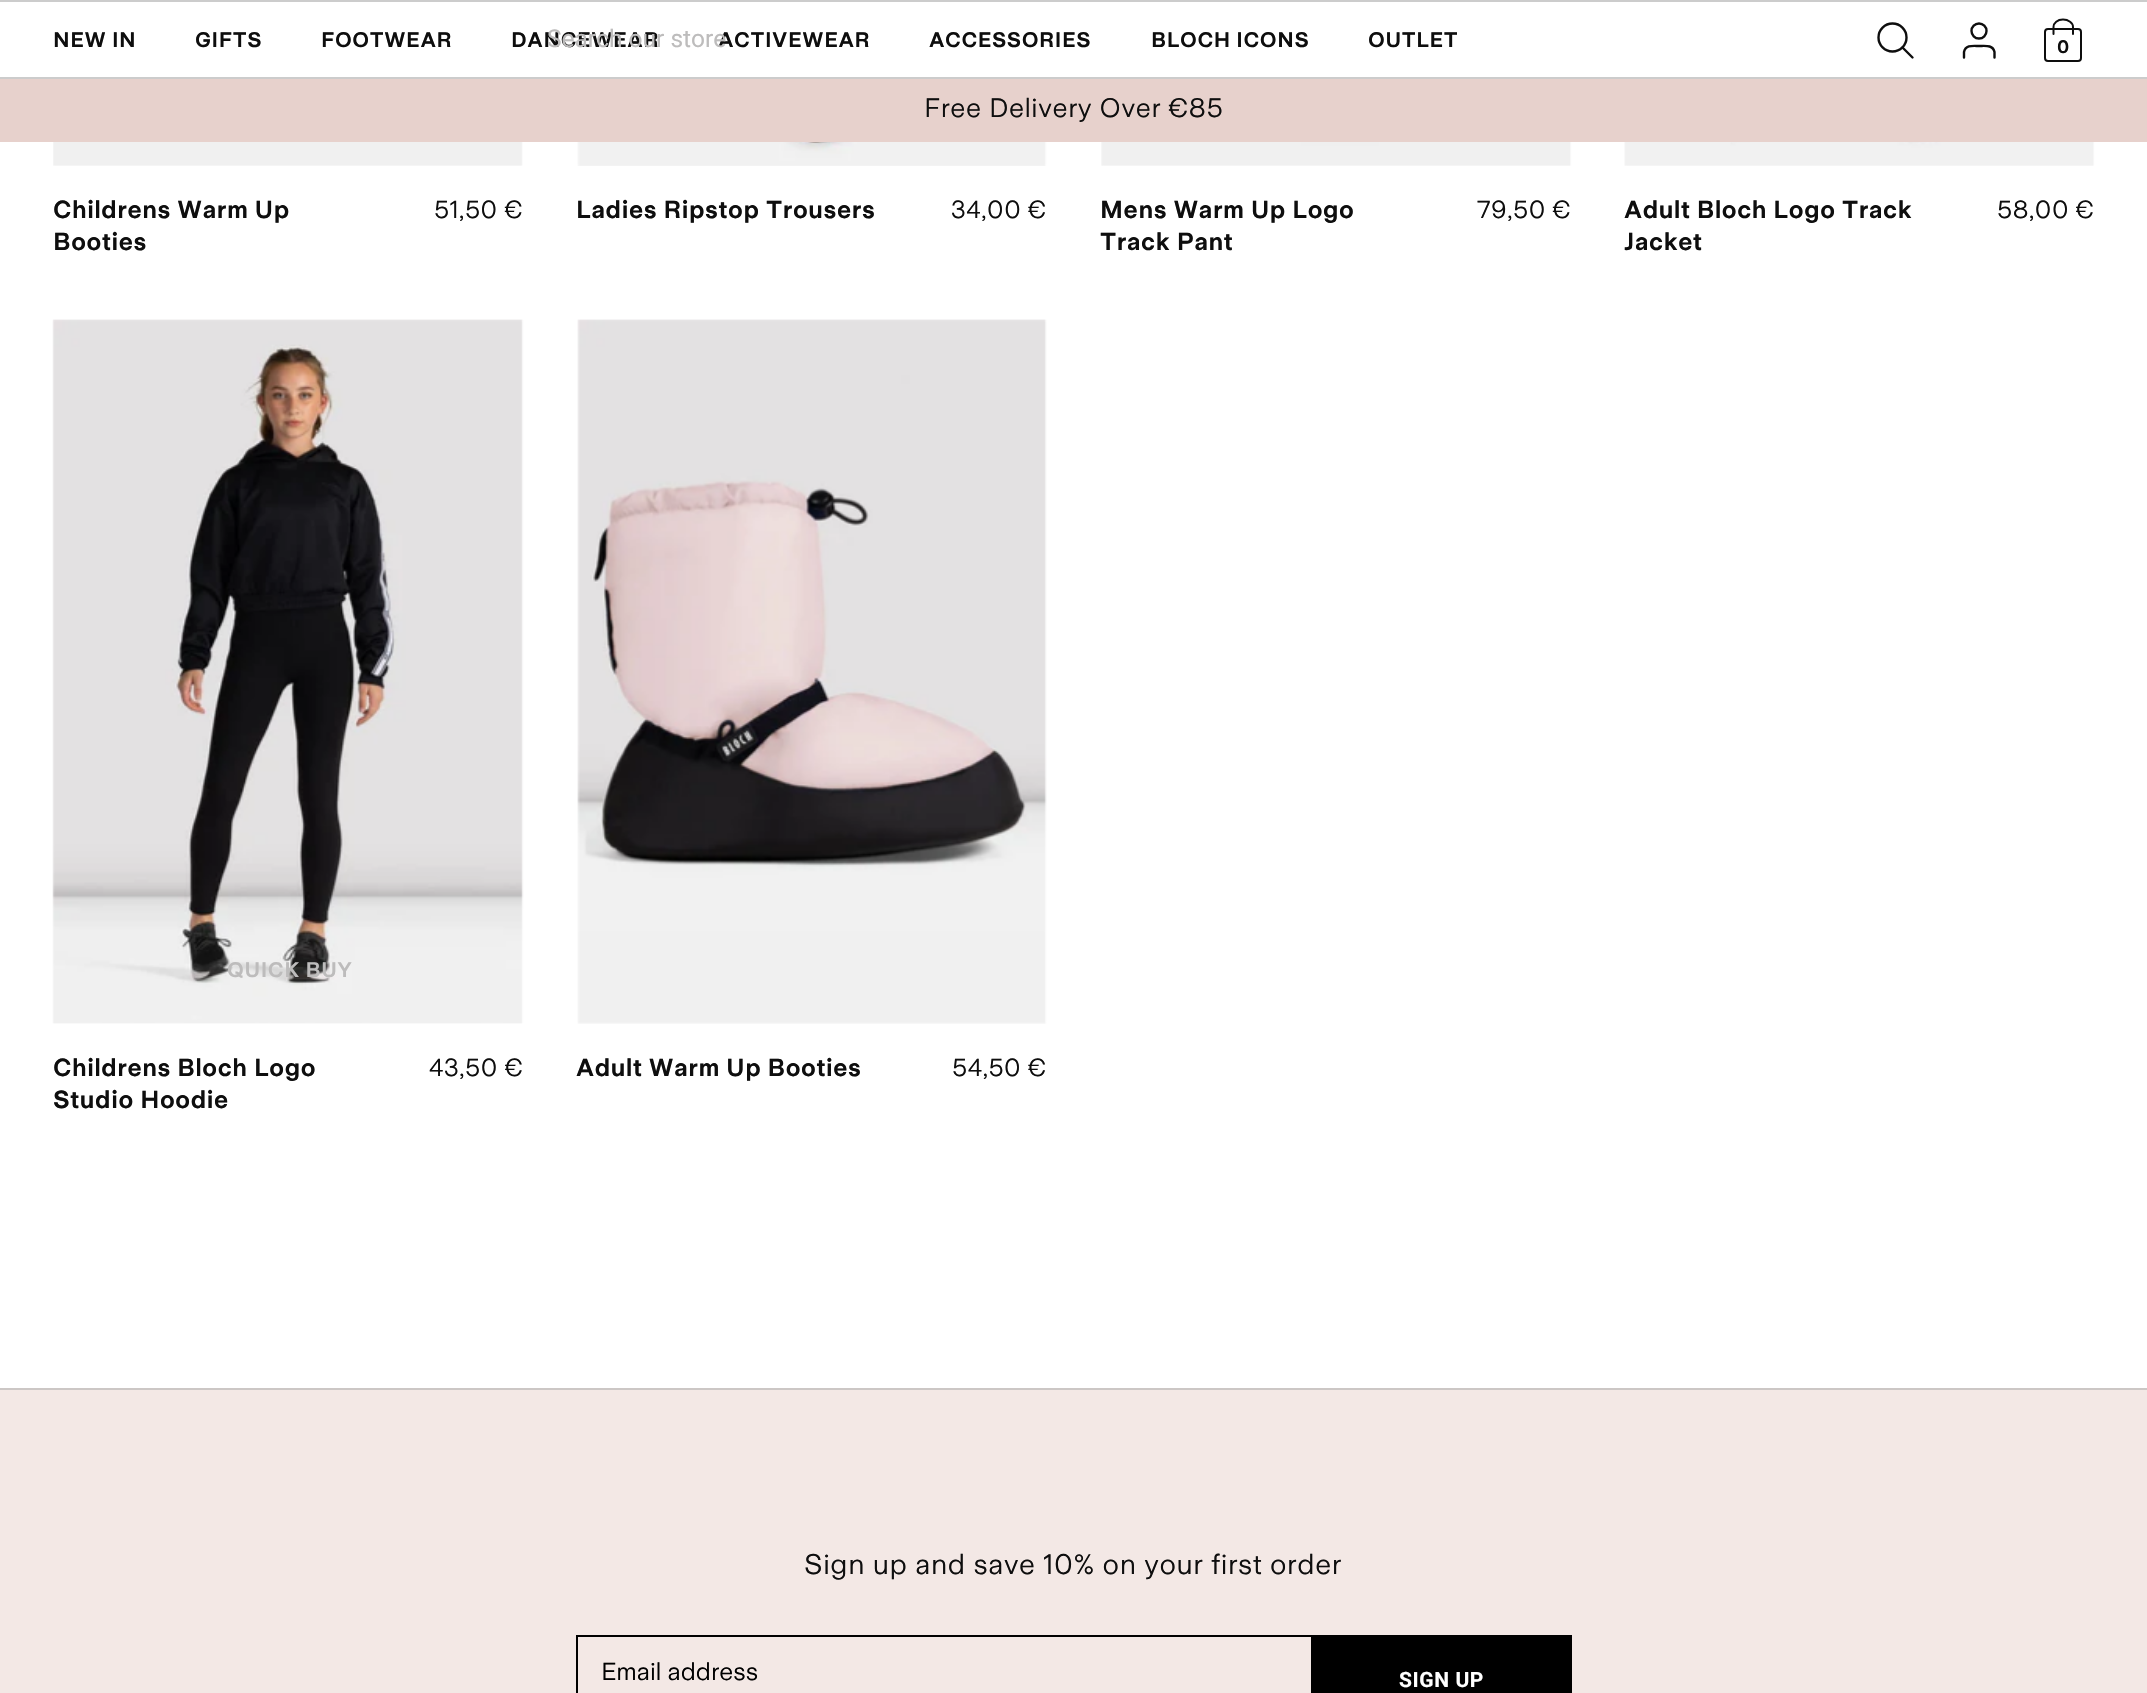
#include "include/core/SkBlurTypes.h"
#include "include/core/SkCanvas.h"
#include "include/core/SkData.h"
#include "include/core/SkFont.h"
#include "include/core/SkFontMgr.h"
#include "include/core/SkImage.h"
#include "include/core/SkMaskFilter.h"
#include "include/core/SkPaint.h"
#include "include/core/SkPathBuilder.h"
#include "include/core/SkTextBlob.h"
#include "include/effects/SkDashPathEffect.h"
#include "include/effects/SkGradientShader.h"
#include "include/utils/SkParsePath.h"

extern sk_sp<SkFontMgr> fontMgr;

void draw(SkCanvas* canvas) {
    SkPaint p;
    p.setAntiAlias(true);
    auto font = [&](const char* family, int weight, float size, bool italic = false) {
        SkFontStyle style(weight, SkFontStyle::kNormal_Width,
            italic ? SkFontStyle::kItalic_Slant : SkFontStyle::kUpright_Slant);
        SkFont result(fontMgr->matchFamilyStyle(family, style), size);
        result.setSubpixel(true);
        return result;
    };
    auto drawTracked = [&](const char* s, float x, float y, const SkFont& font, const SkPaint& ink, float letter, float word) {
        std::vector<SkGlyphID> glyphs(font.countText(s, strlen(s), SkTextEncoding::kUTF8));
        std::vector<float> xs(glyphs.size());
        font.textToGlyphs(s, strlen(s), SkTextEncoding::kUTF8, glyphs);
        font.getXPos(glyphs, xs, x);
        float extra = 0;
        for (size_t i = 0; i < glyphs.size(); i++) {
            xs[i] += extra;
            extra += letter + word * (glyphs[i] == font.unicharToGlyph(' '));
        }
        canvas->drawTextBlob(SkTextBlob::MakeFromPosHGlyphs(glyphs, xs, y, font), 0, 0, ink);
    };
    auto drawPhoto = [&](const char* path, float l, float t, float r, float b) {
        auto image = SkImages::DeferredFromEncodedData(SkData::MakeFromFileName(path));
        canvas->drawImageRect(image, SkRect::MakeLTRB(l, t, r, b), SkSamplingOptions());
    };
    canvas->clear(0xFFFFFFFF);
    p.setColor(0xFFCCCCCC);
    canvas->drawRect(SkRect::MakeLTRB(0, 0, 2147, 2), p);
    canvas->drawRect(SkRect::MakeLTRB(0, 77, 2147, 79), p);
    auto font1 = font("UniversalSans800", 800, 21);
    p.setColor(0xFF0E0E0E);
    drawTracked("DANCEWEAR", 511, 47, font1, p, 0.6f, 0);
    drawTracked("ACTIVEWEAR", 718, 47, font1, p, 0.6f, 0);
    auto font2 = font("Roboto", 400, 24.5f);
    p.setColor(0xFFBDBCBC);
    canvas->drawString("Search our store", 547, 47, font2, p);
    p.setStyle(SkPaint::kStroke_Style);
    p.setStrokeWidth(2.4f);
    p.setColor(0xFF0E0E0E);
    canvas->drawCircle(1892.5f, 37.5f, 14, p);
    p.setStrokeCap(SkPaint::kRound_Cap);
    canvas->drawPath(SkPathBuilder().moveTo(1912.5f, 57.5f).lineTo(1902.5f, 47.5f).detach(), p);
    canvas->drawPath(SkPathBuilder().moveTo(1994.5f, 57.5f).lineTo(1994.5f, 52).cubicTo(1993, 44.5f, 1985, 46, 1979, 46).cubicTo(1973.5f, 46, 1965.5f, 44.5f, 1964, 52).lineTo(1964, 57.5f).detach(), p);
    p.setStrokeCap(SkPaint::kButt_Cap);
    canvas->drawCircle(1979, 31, 7.5f, p);
    p.setStrokeWidth(2);
    canvas->drawRoundRect(SkRect::MakeLTRB(2045, 29, 2081, 61), 3, 3, p);
    p.setStrokeCap(SkPaint::kRound_Cap);
    canvas->drawPath(SkPathBuilder().moveTo(2053.5f, 34).lineTo(2053.5f, 27).cubicTo(2053.5f, 23, 2057.5f, 19.5f, 2063, 19.5f).cubicTo(2068.5f, 19.5f, 2073, 23, 2073, 27).lineTo(2073, 34).detach(), p);
    auto font3 = font("UniversalSans800", 800, 18);
    p.setStyle(SkPaint::kFill_Style);
    canvas->drawString("0", 2057, 53, font3, p);
    {
        const struct { const char* s; float x, y; } items[] = {
            {"NEW IN", 53, 47},
            {"GIFTS", 195, 47},
            {"FOOTWEAR", 321, 47},
            {"ACCESSORIES", 929, 47},
            {"BLOCH ICONS", 1151, 47},
            {"OUTLET", 1368, 47},
        };
        for (auto [s, x, y] : items) {
            drawTracked(s, x, y, font1, p, 0.6f, 0);
        }
    }
    p.setColor(0xFFE7D1CC);
    canvas->drawRect(SkRect::MakeLTRB(0, 79, 2147, 142), p);
    auto font4 = font("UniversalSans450", 400, 26.5f);
    p.setColor(0xFF0E0E0E);
    drawTracked("Free Delivery Over €85", 924, 117, font4, p, 0.6f, 0);
    drawPhoto("media/1.png", 53, 142, 523, 166);
    auto font5 = font("UniversalSans800", 800, 24.5f);
    drawTracked("Childrens Warm Up", 53, 218, font5, p, 0.6f, 0);
    drawTracked("Booties", 53, 250, font5, p, 0.6f, 0);
    auto font6 = font("UniversalSans450", 400, 24.5f);
    drawTracked("51,50 €", 434, 218, font6, p, 0.6f, 0);
    drawPhoto("media/2.png", 577, 142, 1047, 166);
    drawTracked("Ladies Ripstop Trousers", 576, 218, font5, p, 0.6f, 0);
    drawTracked("34,00 €", 951, 218, font6, p, 0.6f, 0);
    drawPhoto("media/3.png", 1101, 142, 1572, 166);
    drawTracked("Mens Warm Up Logo", 1100, 218, font5, p, 0.6f, 0);
    drawTracked("Track Pant", 1100, 250, font5, p, 0.6f, 0);
    drawTracked("79,50 €", 1477, 218, font6, p, 0.6f, 0);
    drawPhoto("media/4.png", 1624, 142, 2095, 166);
    drawTracked("Adult Bloch Logo Track", 1624, 218, font5, p, 0.6f, 0);
    drawTracked("Jacket", 1624, 250, font5, p, 0.6f, 0);
    drawTracked("58,00 €", 1997, 218, font6, p, 0.6f, 0);
    drawPhoto("media/5.png", 52, 319, 524, 1024);
    p.setColor(0xFFBDBCBC);
    drawTracked("QUICK BUY", 227, 977, font1, p, 0.6f, 0);
    p.setColor(0xFF0E0E0E);
    drawTracked("Childrens Bloch Logo", 53, 1076, font5, p, 0.6f, 0);
    drawTracked("Studio Hoodie", 53, 1108, font5, p, 0.6f, 0);
    drawTracked("43,50 €", 429, 1076, font6, p, 0.6f, 0);
    drawPhoto("media/6.png", 577, 319, 1047, 1024);
    drawTracked("Adult Warm Up Booties", 576, 1076, font5, p, 0.6f, 0);
    drawTracked("54,50 €", 952, 1076, font6, p, 0.6f, 0);
    p.setColor(0xFFF3E8E5);
    canvas->drawRect(SkRect::MakeLTRB(0, 1390, 2147, 1693), p);
    p.setColor(0xFFCCC7C5);
    canvas->drawRect(SkRect::MakeLTRB(0, 1388, 2147, 1390), p);
    auto font7 = font("UniversalSans450", 400, 28);
    p.setColor(0xFF0E0E0E);
    drawTracked("Sign up and save 10% on your first order", 804, 1574, font7, p, 0.6f, 0);
    p.setStyle(SkPaint::kStroke_Style);
    p.setStrokeCap(SkPaint::kButt_Cap);
    p.setColor(0xFF000000);
    canvas->drawRect(SkRect::MakeLTRB(577, 1636, 1312, 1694), p);
    p.setStyle(SkPaint::kFill_Style);
    canvas->drawString("Email address", 601, 1680, font6, p);
    canvas->drawRect(SkRect::MakeLTRB(1313, 1635, 1572, 1693), p);
    auto font8 = font("Roboto", 700, 21);
    p.setColor(0xFFFFFFFF);
    drawTracked("SIGN UP", 1399, 1687, font8, p, 0.6f, 0);
}
